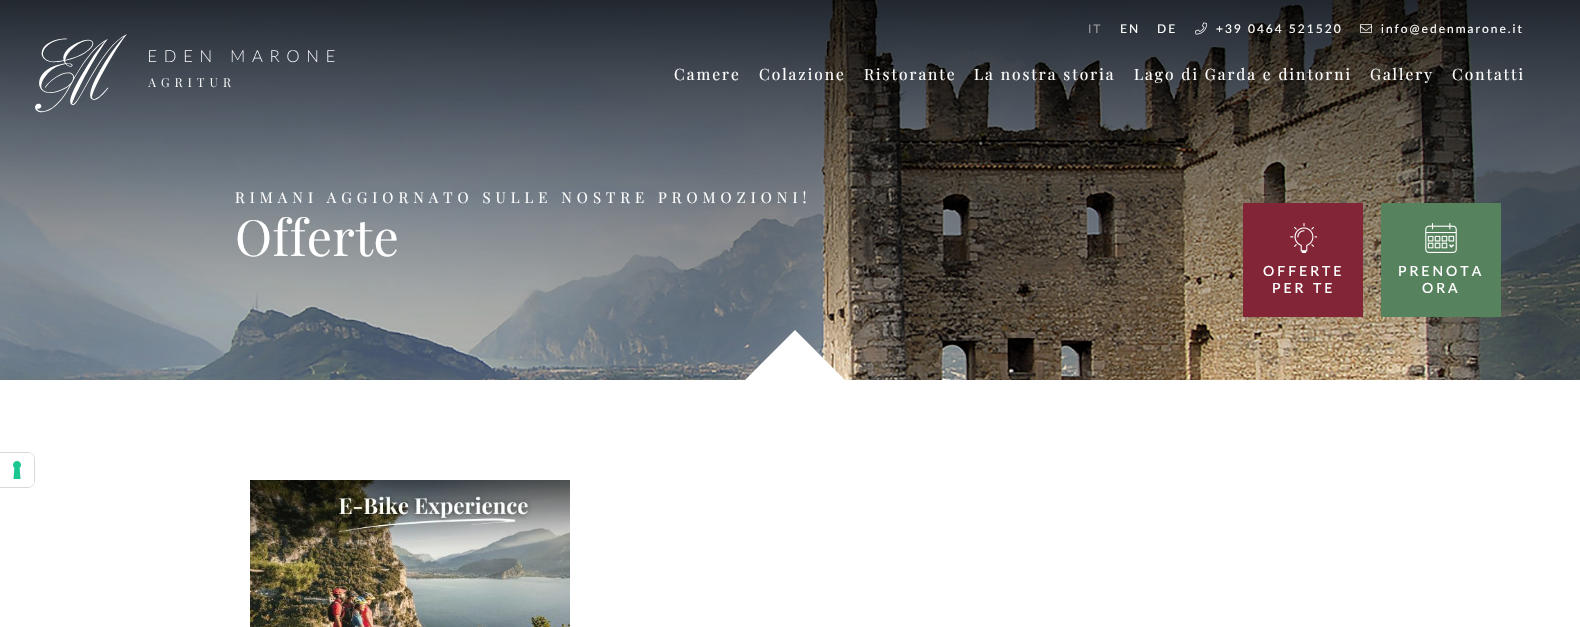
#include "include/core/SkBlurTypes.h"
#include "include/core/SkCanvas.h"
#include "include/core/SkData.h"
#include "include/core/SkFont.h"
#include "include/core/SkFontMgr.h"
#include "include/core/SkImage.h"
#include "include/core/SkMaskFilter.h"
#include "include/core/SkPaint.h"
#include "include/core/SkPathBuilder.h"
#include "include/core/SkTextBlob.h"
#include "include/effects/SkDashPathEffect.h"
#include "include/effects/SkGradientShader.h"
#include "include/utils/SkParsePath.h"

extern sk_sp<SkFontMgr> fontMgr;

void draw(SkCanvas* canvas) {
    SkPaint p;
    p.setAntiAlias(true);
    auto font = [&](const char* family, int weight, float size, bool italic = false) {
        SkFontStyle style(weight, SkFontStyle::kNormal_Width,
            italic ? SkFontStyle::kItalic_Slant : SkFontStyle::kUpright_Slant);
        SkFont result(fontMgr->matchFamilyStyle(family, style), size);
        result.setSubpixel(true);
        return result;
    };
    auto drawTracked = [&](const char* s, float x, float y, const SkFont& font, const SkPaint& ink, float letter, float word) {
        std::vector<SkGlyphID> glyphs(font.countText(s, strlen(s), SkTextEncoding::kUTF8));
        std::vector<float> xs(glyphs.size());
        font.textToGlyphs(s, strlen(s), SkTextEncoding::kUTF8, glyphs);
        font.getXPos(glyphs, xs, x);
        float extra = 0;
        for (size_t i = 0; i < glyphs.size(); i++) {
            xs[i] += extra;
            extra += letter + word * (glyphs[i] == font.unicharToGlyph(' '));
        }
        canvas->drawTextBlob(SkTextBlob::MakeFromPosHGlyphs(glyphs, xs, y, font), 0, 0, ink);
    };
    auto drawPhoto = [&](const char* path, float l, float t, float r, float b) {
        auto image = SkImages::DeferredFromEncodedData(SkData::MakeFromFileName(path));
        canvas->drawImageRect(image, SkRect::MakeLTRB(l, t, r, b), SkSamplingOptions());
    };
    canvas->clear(0xFFFFFFFF);
    drawPhoto("media/1.png", 0, 0, 1580, 380);
    drawPhoto("media/2.png", 35, 34, 335, 113);
    auto font1 = font("Lato", 400, 12);
    p.setColor(0xFF96999D);
    drawTracked("IT", 1088, 33, font1, p, 2, 0);
    p.setColor(0xFFFFFFFF);
    drawTracked("EN", 1120, 33, font1, p, 2, 0);
    drawTracked("DE", 1157, 33, font1, p, 2, 0);
    drawPhoto("media/3.png", 1195, 22, 1207, 35);
    drawTracked("+39 0464 521520", 1216, 33, font1, p, 2, 0);
    drawPhoto("media/4.png", 1360, 24, 1372, 33);
    drawTracked("info@edenmarone.it", 1381, 33, font1, p, 2, 0);
    auto font2 = font("Playfair Display", 400, 15.5f);
    {
        const struct { const char* s; float x, y; } items[] = {
            {"Camere", 674, 80},
            {"Colazione", 759, 80},
            {"Ristorante", 864, 80},
            {"La nostra storia", 974, 80},
            {"Lago di Garda e dintorni", 1134, 80},
            {"Gallery", 1370, 80},
            {"Contatti", 1452, 80},
        };
        for (auto [s, x, y] : items) {
            drawTracked(s, x, y, font2, p, 2, 0);
        }
    }
    auto font3 = font("Playfair Display", 400, 15);
    drawTracked("RIMANI AGGIORNATO SULLE NOSTRE PROMOZIONI!", 235, 203, font3, p, 5, 0);
    auto font4 = font("Playfair Display", 400, 50);
    drawTracked("Offerte", 235, 256, font4, p, 0.5f, 0);
    p.setColor(0xFF822537);
    canvas->drawRect(SkRect::MakeLTRB(1243, 203, 1363, 317), p);
    drawPhoto("media/5.png", 1290, 223, 1317, 253);
    auto font5 = font("Lato", 500, 14);
    p.setColor(0xFFFFFFFF);
    drawTracked("OFFERTE", 1263, 276, font5, p, 3, 0);
    drawTracked("PER TE", 1272, 293, font5, p, 3, 0);
    p.setColor(0xFF56825E);
    canvas->drawRect(SkRect::MakeLTRB(1381, 203, 1501, 317), p);
    drawPhoto("media/6.png", 1425, 223, 1457, 253);
    p.setColor(0xFFFFFFFF);
    drawTracked("PRENOTA", 1398, 276, font5, p, 3, 0);
    drawTracked("ORA", 1422, 293, font5, p, 3, 0);
    canvas->drawPath(SkPathBuilder().moveTo(845, 380).lineTo(745, 380).lineTo(795, 330).close().detach(), p);
    p.setStyle(SkPaint::kStroke_Style);
    p.setStrokeWidth(1);
    p.setColor(0xFFD9D9D9);
    canvas->drawPath(SkPathBuilder().moveTo(-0.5f, 452.5f).lineTo(28, 452.5f).cubicTo(31.5f, 452.5f, 34.5f, 455.5f, 34.5f, 459).lineTo(34.5f, 481).cubicTo(34.5f, 484.5f, 31.5f, 487.5f, 28, 487.5f).lineTo(-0.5f, 487.5f).close().detach(), p);
    p.setStyle(SkPaint::kFill_Style);
    p.setColor(0xFFFFFFFF);
    canvas->drawPath(SkPathBuilder().moveTo(0, 453).lineTo(28, 453).cubicTo(31.5f, 453, 34, 455.5f, 34, 459).lineTo(34, 481).cubicTo(34, 484.5f, 31.5f, 487, 28, 487).lineTo(0, 487).close().detach(), p);
    drawPhoto("media/7.png", 13, 461, 21, 479);
    drawPhoto("media/8.png", 250, 480, 570, 627);
}
